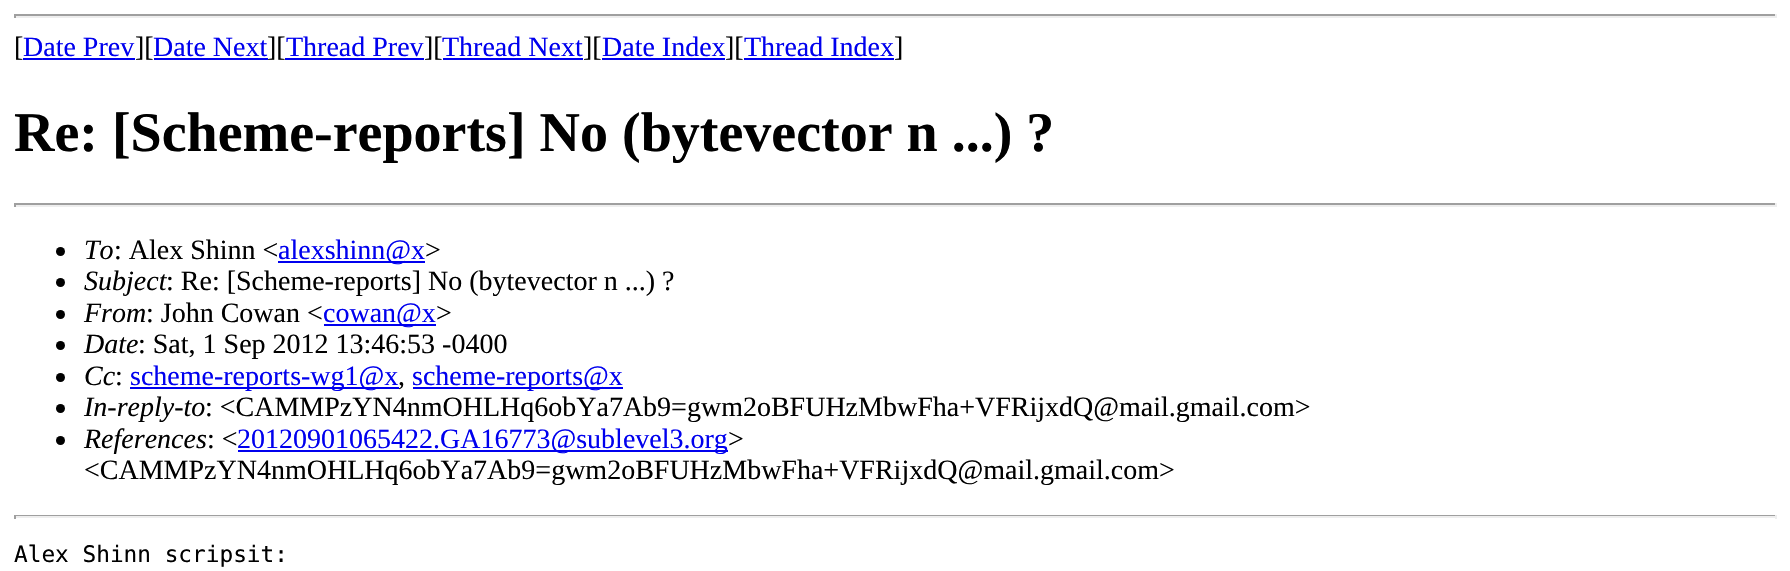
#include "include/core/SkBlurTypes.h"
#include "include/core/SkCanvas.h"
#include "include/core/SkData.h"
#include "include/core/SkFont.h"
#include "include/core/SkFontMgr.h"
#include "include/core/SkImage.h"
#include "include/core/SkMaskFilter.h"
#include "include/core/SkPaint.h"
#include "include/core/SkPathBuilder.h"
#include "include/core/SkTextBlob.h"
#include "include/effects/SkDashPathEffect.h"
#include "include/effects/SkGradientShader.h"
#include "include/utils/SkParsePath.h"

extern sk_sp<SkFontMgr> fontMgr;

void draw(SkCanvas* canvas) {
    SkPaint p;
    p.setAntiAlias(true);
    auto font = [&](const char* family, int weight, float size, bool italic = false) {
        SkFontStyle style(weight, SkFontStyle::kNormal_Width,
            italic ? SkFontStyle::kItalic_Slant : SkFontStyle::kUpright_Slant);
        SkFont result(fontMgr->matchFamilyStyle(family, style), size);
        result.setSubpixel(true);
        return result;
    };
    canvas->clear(0xFFFFFFFF);
    {
        const struct { float l, t, r, b; SkColor color; } items[] = {
            {14, 14, 1776, 16, 0xFF9F9F9F},
            {1775, 14, 1777, 18, 0xFFEEEEEE},
            {14, 16, 1776, 18, 0xFFEEEEEE},
            {14, 14, 16, 18, 0xFF9F9F9F},
        };
        for (auto [l, t, r, b, color] : items) {
            p.setColor(color);
            canvas->drawRect(SkRect::MakeLTRB(l, t, r, b), p);
        }
    }
    auto font1 = font("Liberation Serif", 400, 28);
    p.setColor(0xFF000000);
    canvas->drawString("[", 14, 56, font1, p);
    p.setColor(0xFF0000EE);
    canvas->drawString("Date Prev", 23, 56, font1, p);
    canvas->drawRect(SkRect::MakeLTRB(23, 58, 135, 60), p);
    p.setColor(0xFF000000);
    canvas->drawString("][", 135, 56, font1, p);
    p.setColor(0xFF0000EE);
    canvas->drawString("Date Next", 153, 56, font1, p);
    canvas->drawRect(SkRect::MakeLTRB(154, 58, 268, 60), p);
    p.setColor(0xFF000000);
    canvas->drawString("][", 267, 56, font1, p);
    p.setColor(0xFF0000EE);
    canvas->drawString("Thread Prev", 286, 56, font1, p);
    canvas->drawRect(SkRect::MakeLTRB(285, 58, 424, 60), p);
    p.setColor(0xFF000000);
    canvas->drawString("][", 424, 56, font1, p);
    p.setColor(0xFF0000EE);
    canvas->drawString("Thread Next", 442, 56, font1, p);
    canvas->drawRect(SkRect::MakeLTRB(443, 58, 583, 60), p);
    p.setColor(0xFF000000);
    canvas->drawString("][", 583, 56, font1, p);
    p.setColor(0xFF0000EE);
    canvas->drawString("Date Index", 602, 56, font1, p);
    canvas->drawRect(SkRect::MakeLTRB(602, 58, 725, 60), p);
    p.setColor(0xFF000000);
    canvas->drawString("][", 725, 56, font1, p);
    p.setColor(0xFF0000EE);
    canvas->drawString("Thread Index", 744, 56, font1, p);
    canvas->drawRect(SkRect::MakeLTRB(744, 58, 894, 60), p);
    p.setColor(0xFF000000);
    canvas->drawString("]", 894, 56, font1, p);
    auto font2 = font("Liberation Serif", 700, 56);
    canvas->drawString("Re: [Scheme-reports] No (bytevector n ...) ?", 14, 151, font2, p);
    {
        const struct { float l, t, r, b; SkColor color; } items[] = {
            {14, 203, 1776, 205, 0xFF9F9F9F},
            {1775, 203, 1777, 207, 0xFFEEEEEE},
            {14, 205, 1776, 207, 0xFFEEEEEE},
            {14, 203, 16, 207, 0xFF9F9F9F},
        };
        for (auto [l, t, r, b, color] : items) {
            p.setColor(color);
            canvas->drawRect(SkRect::MakeLTRB(l, t, r, b), p);
        }
    }
    p.setColor(0xFF000000);
    canvas->drawCircle(60.5f, 251.5f, 4.5f, p);
    auto font3 = font("Liberation Serif", 400, 28, true);
    canvas->drawString("To", 84, 259, font3, p);
    canvas->drawString(": Alex Shinn <", 114, 259, font1, p);
    p.setColor(0xFF0000EE);
    canvas->drawRect(SkRect::MakeLTRB(278, 261, 425, 263), p);
    canvas->drawString("alexshinn@x", 278, 259, font1, p);
    p.setColor(0xFF000000);
    canvas->drawString(">", 425, 259, font1, p);
    canvas->drawCircle(60.5f, 282.5f, 4.5f, p);
    canvas->drawString("Subject", 84, 290, font3, p);
    canvas->drawString(": Re: [Scheme-reports] No (bytevector n ...) ?", 166, 290, font1, p);
    canvas->drawCircle(60.5f, 314.5f, 4.5f, p);
    canvas->drawString("From", 84, 322, font3, p);
    canvas->drawString(": John Cowan <", 146, 322, font1, p);
    p.setColor(0xFF0000EE);
    canvas->drawRect(SkRect::MakeLTRB(324, 324, 436, 326), p);
    canvas->drawString("cowan@x", 323, 322, font1, p);
    p.setColor(0xFF000000);
    canvas->drawString(">", 436, 322, font1, p);
    canvas->drawCircle(60.5f, 345.5f, 4.5f, p);
    canvas->drawString("Date", 84, 353, font3, p);
    canvas->drawString(": Sat, 1 Sep 2012 13:46:53 -0400", 138, 353, font1, p);
    canvas->drawCircle(60.5f, 377.5f, 4.5f, p);
    canvas->drawString("Cc", 84, 385, font3, p);
    canvas->drawString(":", 115, 385, font1, p);
    p.setColor(0xFF0000EE);
    canvas->drawRect(SkRect::MakeLTRB(130, 387, 399, 389), p);
    canvas->drawString("scheme-reports-wg1@x", 130, 385, font1, p);
    canvas->drawRect(SkRect::MakeLTRB(413, 387, 623, 389), p);
    canvas->drawString("scheme-reports@x", 412, 385, font1, p);
    p.setColor(0xFF000000);
    canvas->drawString(",", 398, 385, font1, p);
    canvas->drawCircle(60.5f, 408.5f, 4.5f, p);
    canvas->drawString("In-reply-to", 84, 416, font3, p);
    canvas->drawString(": <CAMMPzYN4nmOHLHq6obYa7Ab9=gwm2oBFUHzMbwFha+VFRijxdQ@mail.gmail.com>", 205, 416, font1, p);
    canvas->drawCircle(60.5f, 440.5f, 4.5f, p);
    canvas->drawString("References", 84, 448, font3, p);
    canvas->drawString(": <", 207, 448, font1, p);
    p.setColor(0xFF0000EE);
    canvas->drawRect(SkRect::MakeLTRB(238, 450, 728, 452), p);
    canvas->drawString("20120901065422.GA16773@sublevel3.org", 237, 448, font1, p);
    p.setColor(0xFF000000);
    canvas->drawString(">", 728, 448, font1, p);
    canvas->drawString("<CAMMPzYN4nmOHLHq6obYa7Ab9=gwm2oBFUHzMbwFha+VFRijxdQ@mail.gmail.com>", 84, 479, font1, p);
    {
        const struct { float l, t, r, b; SkColor color; } items[] = {
            {14, 515, 1776, 516, 0xFF9F9F9F},
            {1775, 515, 1777, 519, 0xFFEEEEEE},
            {14, 516, 1776, 518, 0xFFEEEEEE},
            {14, 515, 16, 519, 0xFF9F9F9F},
        };
        for (auto [l, t, r, b, color] : items) {
            p.setColor(color);
            canvas->drawRect(SkRect::MakeLTRB(l, t, r, b), p);
        }
    }
    auto font4 = font("DejaVu Sans Mono", 400, 22.75f);
    p.setColor(0xFF000000);
    canvas->drawString("Alex Shinn scripsit:", 14, 562, font4, p);
}
